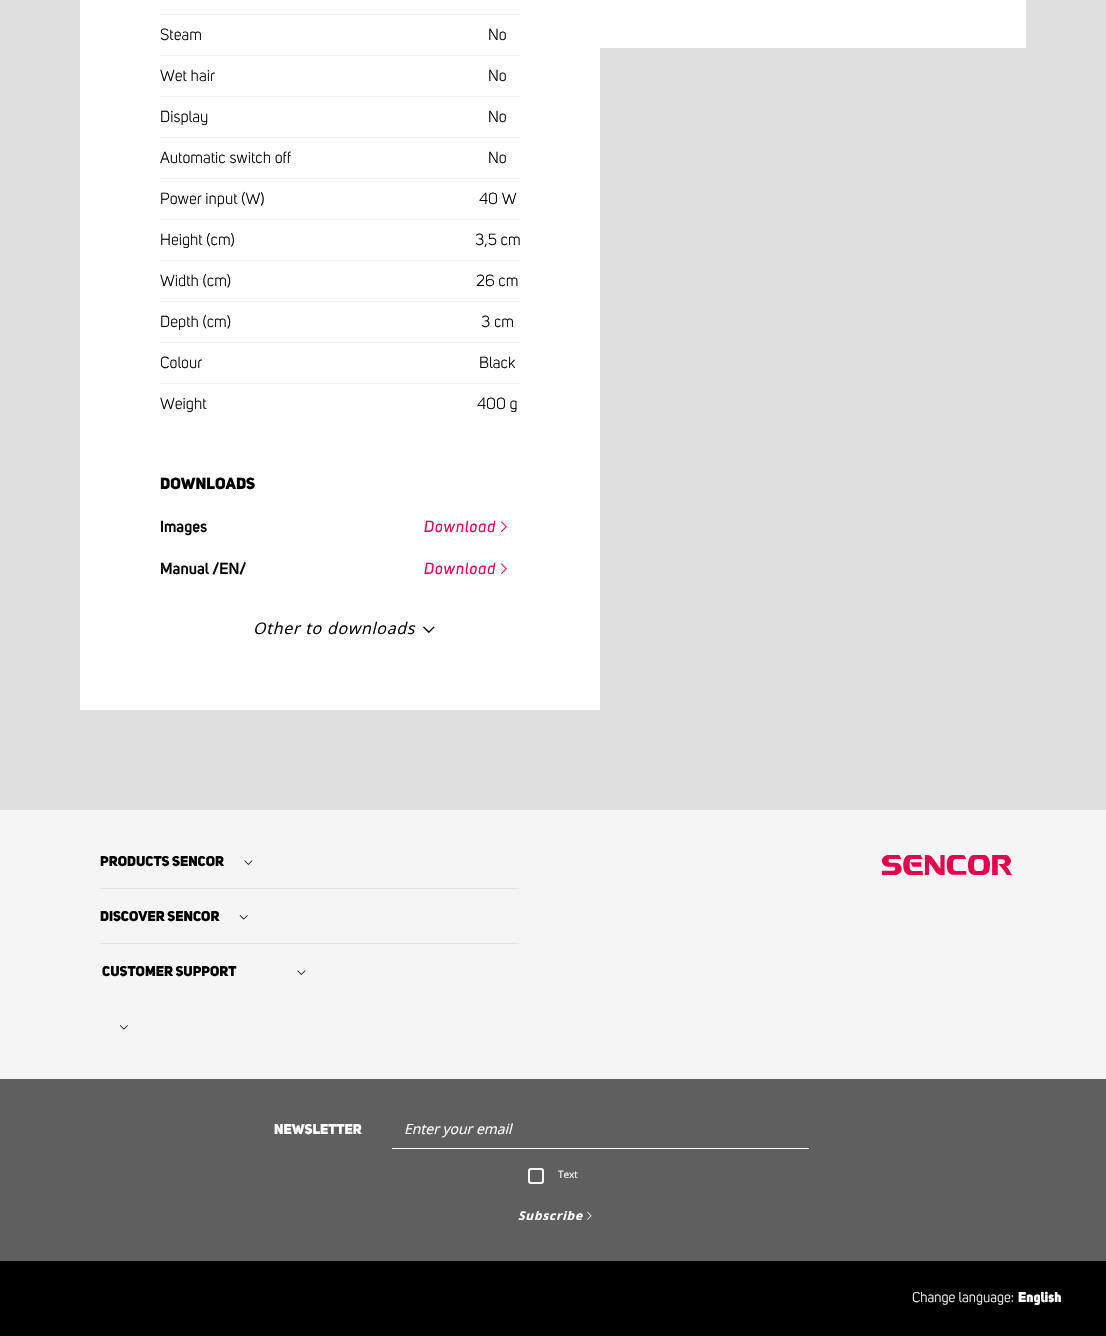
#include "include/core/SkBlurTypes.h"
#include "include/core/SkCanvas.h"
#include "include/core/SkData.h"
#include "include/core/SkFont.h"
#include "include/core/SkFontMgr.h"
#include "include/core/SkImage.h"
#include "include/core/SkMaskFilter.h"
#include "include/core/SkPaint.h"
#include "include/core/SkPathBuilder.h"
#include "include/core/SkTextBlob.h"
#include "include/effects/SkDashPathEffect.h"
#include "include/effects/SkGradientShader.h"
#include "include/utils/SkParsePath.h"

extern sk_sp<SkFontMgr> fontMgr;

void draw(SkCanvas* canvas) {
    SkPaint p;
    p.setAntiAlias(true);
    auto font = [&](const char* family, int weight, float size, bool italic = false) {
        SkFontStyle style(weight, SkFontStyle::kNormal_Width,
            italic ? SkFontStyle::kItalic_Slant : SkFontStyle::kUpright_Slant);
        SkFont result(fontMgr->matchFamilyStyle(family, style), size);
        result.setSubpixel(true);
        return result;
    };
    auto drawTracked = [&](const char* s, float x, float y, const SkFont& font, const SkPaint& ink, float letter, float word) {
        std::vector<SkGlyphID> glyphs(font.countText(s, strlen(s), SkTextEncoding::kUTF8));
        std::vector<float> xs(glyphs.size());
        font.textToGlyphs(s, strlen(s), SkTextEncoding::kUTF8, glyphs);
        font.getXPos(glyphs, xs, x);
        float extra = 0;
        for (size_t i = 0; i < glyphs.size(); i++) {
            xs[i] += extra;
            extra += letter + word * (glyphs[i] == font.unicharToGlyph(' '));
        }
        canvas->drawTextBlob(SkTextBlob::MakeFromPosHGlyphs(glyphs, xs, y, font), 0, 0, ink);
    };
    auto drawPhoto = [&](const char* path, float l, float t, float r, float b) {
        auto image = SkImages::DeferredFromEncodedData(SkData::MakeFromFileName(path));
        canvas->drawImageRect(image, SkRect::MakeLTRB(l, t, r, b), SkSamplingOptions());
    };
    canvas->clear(0xFFDFDFDF);
    {
        const struct { float l, t, r, b; SkColor color; } items[] = {
            {80, 0, 600, 710, 0xFFFFFFFF},
            {160, 14, 521, 15, 0xFFF1F1F1},
            {160, 55, 521, 56, 0xFFF1F1F1},
        };
        for (auto [l, t, r, b, color] : items) {
            p.setColor(color);
            canvas->drawRect(SkRect::MakeLTRB(l, t, r, b), p);
        }
    }
    auto font1 = font("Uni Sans", 400, 16);
    p.setColor(0xFF000001);
    canvas->drawString("Steam", 160, 40, font1, p);
    canvas->drawString("No", 488, 40, font1, p);
    p.setColor(0xFFF1F1F1);
    canvas->drawRect(SkRect::MakeLTRB(160, 96, 521, 97), p);
    p.setColor(0xFF000001);
    canvas->drawString("Wet hair", 160, 81, font1, p);
    canvas->drawString("No", 488, 81, font1, p);
    p.setColor(0xFFF1F1F1);
    canvas->drawRect(SkRect::MakeLTRB(160, 137, 521, 138), p);
    p.setColor(0xFF000001);
    canvas->drawString("Display", 160, 122, font1, p);
    canvas->drawString("No", 488, 122, font1, p);
    p.setColor(0xFFF1F1F1);
    canvas->drawRect(SkRect::MakeLTRB(160, 178, 521, 179), p);
    p.setColor(0xFF000001);
    canvas->drawString("Automatic switch off", 160, 163, font1, p);
    canvas->drawString("No", 488, 163, font1, p);
    p.setColor(0xFFF1F1F1);
    canvas->drawRect(SkRect::MakeLTRB(160, 219, 521, 220), p);
    p.setColor(0xFF000001);
    canvas->drawString("Power input (W)", 160, 204, font1, p);
    canvas->drawString("40 W", 479, 204, font1, p);
    p.setColor(0xFFF1F1F1);
    canvas->drawRect(SkRect::MakeLTRB(160, 260, 521, 261), p);
    p.setColor(0xFF000001);
    canvas->drawString("Height (cm)", 160, 245, font1, p);
    canvas->drawString("3,5 cm", 475, 245, font1, p);
    p.setColor(0xFFF1F1F1);
    canvas->drawRect(SkRect::MakeLTRB(160, 301, 521, 302), p);
    p.setColor(0xFF000001);
    canvas->drawString("Width (cm)", 160, 286, font1, p);
    canvas->drawString("26 cm", 476, 286, font1, p);
    p.setColor(0xFFF1F1F1);
    canvas->drawRect(SkRect::MakeLTRB(160, 342, 521, 343), p);
    p.setColor(0xFF000001);
    canvas->drawString("Depth (cm)", 160, 327, font1, p);
    canvas->drawString("3 cm", 481, 327, font1, p);
    p.setColor(0xFFF1F1F1);
    canvas->drawRect(SkRect::MakeLTRB(160, 383, 521, 384), p);
    p.setColor(0xFF000001);
    {
        const struct { const char* s; float x, y; } items[] = {
            {"Colour", 160, 368},
            {"Black", 479, 368},
            {"Weight", 160, 409},
            {"400 g", 477, 409},
        };
        for (auto [s, x, y] : items) {
            canvas->drawString(s, x, y, font1, p);
        }
    }
    auto font2 = font("Uni Sans", 900, 16);
    canvas->drawString("DOWNLOADS", 160, 489, font2, p);
    auto font3 = font("Uni Sans", 600, 16);
    canvas->drawString("Images", 160, 532, font3, p);
    auto font4 = font("Uni Sans", 400, 16, true);
    p.setColor(0xFFE5004C);
    drawTracked("Download", 424, 532, font4, p, 0.75f, 0);
    drawPhoto("media/1.png", 501, 521, 507, 532);
    p.setColor(0xFF000001);
    canvas->drawString("Manual /EN/", 160, 574, font3, p);
    p.setColor(0xFFE5004C);
    drawTracked("Download", 424, 574, font4, p, 0.75f, 0);
    drawPhoto("media/1.png", 501, 563, 507, 574);
    auto font5 = font("Open Sans", 400, 16, true);
    p.setColor(0xFF000001);
    drawTracked("Other to downloads", 253, 634, font5, p, 0.75f, 0);
    drawPhoto("media/2.png", 423, 626, 435, 634);
    {
        const struct { float l, t, r, b; SkColor color; } items[] = {
            {600, 0, 1026, 48, 0xFFFFFFFF},
            {0, 810, 1106, 1079, 0xFFF5F5F5},
            {100, 888, 519, 889, 0xFFE4E4E4},
        };
        for (auto [l, t, r, b, color] : items) {
            p.setColor(color);
            canvas->drawRect(SkRect::MakeLTRB(l, t, r, b), p);
        }
    }
    auto font6 = font("Uni Sans", 900, 14);
    p.setColor(0xFF000001);
    canvas->drawString("PRODUCTS SENCOR", 100, 866, font6, p);
    drawPhoto("media/3.png", 244, 860, 253, 865);
    p.setColor(0xFFE4E4E4);
    canvas->drawRect(SkRect::MakeLTRB(100, 943, 519, 944), p);
    p.setColor(0xFF000001);
    canvas->drawString("DISCOVER SENCOR", 100, 921, font6, p);
    drawPhoto("media/4.png", 239, 915, 248, 920);
    canvas->drawString("CUSTOMER SUPPORT", 102, 976, font6, p);
    drawPhoto("media/5.png", 297, 970, 306, 975);
    drawPhoto("media/6.png", 119, 1025, 128, 1030);
    drawPhoto("media/7.png", 882, 855, 1012, 875);
    p.setColor(0xFF5F5F5F);
    canvas->drawRect(SkRect::MakeLTRB(0, 1079, 1106, 1261), p);
    p.setColor(0xFFFFFFFF);
    canvas->drawString("NEWSLETTER", 274, 1134, font6, p);
    canvas->drawRect(SkRect::MakeLTRB(392, 1148, 809, 1149), p);
    auto font7 = font("Open Sans", 400, 14, true);
    canvas->drawString("Enter your email", 404, 1134, font7, p);
    p.setStyle(SkPaint::kStroke_Style);
    p.setStrokeWidth(2);
    canvas->drawRoundRect(SkRect::MakeLTRB(529, 1169, 543, 1183), 2, 2, p);
    auto font8 = font("Open Sans", 400, 10);
    p.setStyle(SkPaint::kFill_Style);
    canvas->drawString("Text", 558, 1178, font8, p);
    auto font9 = font("Open Sans", 700, 12, true);
    drawTracked("Subscribe", 518, 1220, font9, p, 0.75f, 0);
    drawPhoto("media/8.png", 587, 1211, 592, 1220);
    p.setColor(0xFF000001);
    canvas->drawRect(SkRect::MakeLTRB(0, 1261, 1106, 1336), p);
    auto font10 = font("Uni Sans", 400, 14);
    p.setColor(0xFFFFFFFF);
    canvas->drawString("Change language:", 912, 1302, font10, p);
    canvas->drawString("English", 1018, 1302, font6, p);
}
